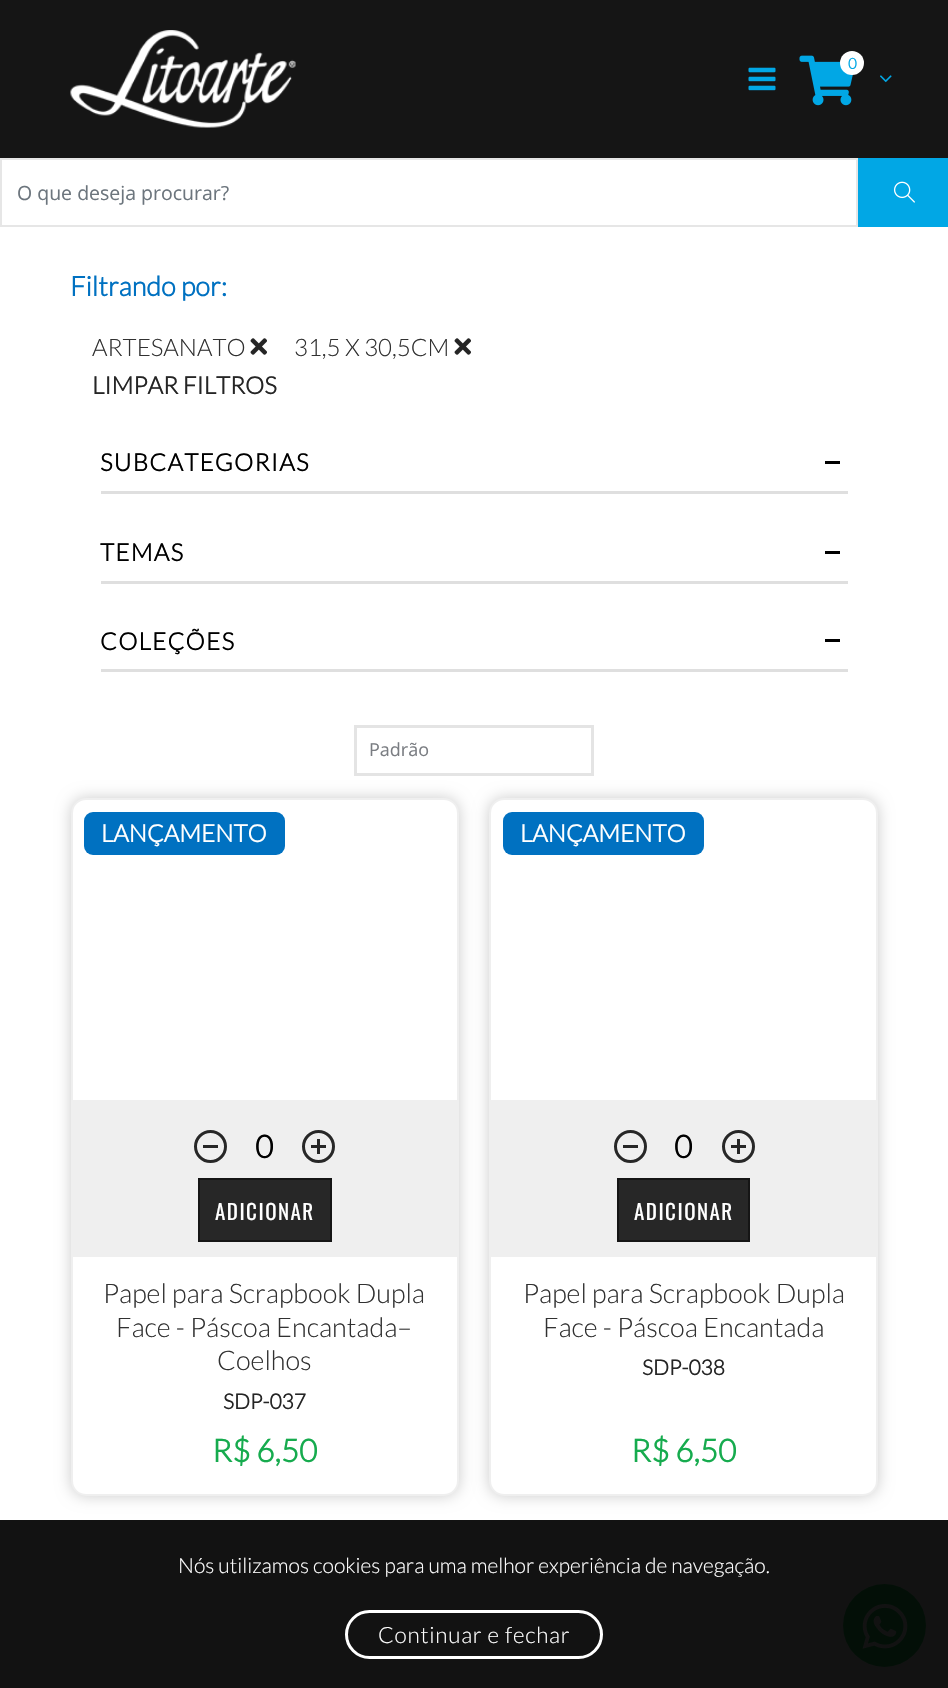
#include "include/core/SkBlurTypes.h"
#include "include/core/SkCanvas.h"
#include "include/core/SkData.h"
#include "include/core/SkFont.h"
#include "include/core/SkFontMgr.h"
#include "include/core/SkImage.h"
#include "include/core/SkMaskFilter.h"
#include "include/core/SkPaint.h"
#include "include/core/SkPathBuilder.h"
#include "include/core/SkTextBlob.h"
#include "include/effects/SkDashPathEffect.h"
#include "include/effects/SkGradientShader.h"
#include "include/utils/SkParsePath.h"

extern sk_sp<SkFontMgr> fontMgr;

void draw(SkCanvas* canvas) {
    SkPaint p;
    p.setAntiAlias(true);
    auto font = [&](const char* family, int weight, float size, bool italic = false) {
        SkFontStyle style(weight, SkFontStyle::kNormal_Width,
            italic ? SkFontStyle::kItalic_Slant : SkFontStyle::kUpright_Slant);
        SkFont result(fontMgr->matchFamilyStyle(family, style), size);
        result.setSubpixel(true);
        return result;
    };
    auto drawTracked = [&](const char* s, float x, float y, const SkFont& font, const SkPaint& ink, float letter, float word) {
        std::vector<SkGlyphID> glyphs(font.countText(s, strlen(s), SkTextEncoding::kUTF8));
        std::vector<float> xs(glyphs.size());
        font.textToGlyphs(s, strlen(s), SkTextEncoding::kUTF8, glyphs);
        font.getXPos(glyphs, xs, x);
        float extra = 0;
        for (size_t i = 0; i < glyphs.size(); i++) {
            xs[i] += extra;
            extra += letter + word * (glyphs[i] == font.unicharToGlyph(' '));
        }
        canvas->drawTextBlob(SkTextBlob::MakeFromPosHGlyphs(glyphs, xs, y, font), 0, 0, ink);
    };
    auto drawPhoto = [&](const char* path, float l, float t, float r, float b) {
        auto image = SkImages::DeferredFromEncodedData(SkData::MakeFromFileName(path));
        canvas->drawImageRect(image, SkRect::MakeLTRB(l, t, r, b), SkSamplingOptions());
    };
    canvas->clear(0xFFFFFFFF);
    p.setColor(0xFF121212);
    canvas->drawRect(SkRect::MakeLTRB(0, 1520, 948, 1688), p);
    p.setColor(0xFF151515);
    canvas->drawRect(SkRect::MakeLTRB(0, 0, 948, 158), p);
    drawPhoto("media/1.png", 70, 30, 296, 128);
    drawPhoto("media/2.png", 799, 55, 853, 106);
    p.setColor(0xFFFFFFFF);
    canvas->drawCircle(852, 63, 12, p);
    auto font1 = font("Lato", 700, 15);
    p.setColor(0xFF01A7E5);
    canvas->drawString("0", 848, 69, font1, p);
    drawPhoto("media/3.png", 880, 75, 892, 83);
    drawPhoto("media/4.png", 748, 67, 776, 91);
    p.setStyle(SkPaint::kStroke_Style);
    p.setStrokeWidth(2);
    p.setColor(0xFFE6E6E6);
    canvas->drawRect(SkRect::MakeLTRB(1, 159, 857, 226), p);
    auto font2 = font("Open Sans", 400, 19.5f);
    p.setStyle(SkPaint::kFill_Style);
    p.setColor(0xFF6C757D);
    canvas->drawString("O que deseja procurar?", 17, 200, font2, p);
    p.setColor(0xFF01A7E5);
    canvas->drawRect(SkRect::MakeLTRB(858, 158, 948, 227), p);
    drawPhoto("media/5.png", 893, 181, 915, 203);
    auto font3 = font("Lato", 700, 27);
    p.setColor(0xFF0071C1);
    canvas->drawString("Filtrando por:", 70, 296, font3, p);
    auto font4 = font("Lato", 300, 24);
    p.setColor(0xFF313131);
    canvas->drawString("ARTESANATO", 92, 356, font4, p);
    drawPhoto("media/6.png", 250, 338, 267, 355);
    canvas->drawString("31,5 X 30,5CM", 294, 356, font4, p);
    drawPhoto("media/6.png", 454, 338, 471, 355);
    auto font5 = font("Lato", 700, 24);
    p.setColor(0xFF252525);
    canvas->drawString("LIMPAR FILTROS", 92, 394, font5, p);
    p.setColor(0xFFDFDFDF);
    canvas->drawRect(SkRect::MakeLTRB(101, 491, 848, 494), p);
    p.setColor(0xFF000000);
    drawTracked("SUBCATEGORIAS", 100, 471, font5, p, 1.25f, 0);
    canvas->drawRect(SkRect::MakeLTRB(825, 461, 840, 464), p);
    p.setColor(0xFFDFDFDF);
    canvas->drawRect(SkRect::MakeLTRB(101, 581, 848, 584), p);
    p.setColor(0xFF000000);
    drawTracked("TEMAS", 100, 561, font5, p, 1.25f, 0);
    canvas->drawRect(SkRect::MakeLTRB(825, 551, 840, 554), p);
    p.setColor(0xFFDFDFDF);
    canvas->drawRect(SkRect::MakeLTRB(101, 669, 848, 672), p);
    p.setColor(0xFF000000);
    drawTracked("COLEÇÕES", 100, 650, font5, p, 1.25f, 0);
    canvas->drawRect(SkRect::MakeLTRB(825, 639, 840, 642), p);
    p.setStyle(SkPaint::kStroke_Style);
    p.setStrokeWidth(3);
    p.setColor(0xFFE4E4E4);
    canvas->drawRect(SkRect::MakeLTRB(355.5f, 726.5f, 592.5f, 774.5f), p);
    auto font6 = font("Open Sans", 400, 18);
    p.setStyle(SkPaint::kFill_Style);
    p.setColor(0xFF7A7D82);
    canvas->drawString("Padrão", 369, 756, font6, p);
    p.setColor(0x33000000);
    p.setMaskFilter(SkMaskFilter::MakeBlur(kNormal_SkBlurStyle, 7.5f));
    canvas->drawRoundRect(SkRect::MakeLTRB(71, 798, 459, 1496), 15, 15, p);
    p.setMaskFilter(nullptr);
    p.setColor(0xFFFFFFFF);
    canvas->drawRoundRect(SkRect::MakeLTRB(72, 799, 458, 1495), 14, 14, p);
    p.setStyle(SkPaint::kStroke_Style);
    p.setStrokeWidth(2);
    p.setColor(0xFFEFEFEF);
    canvas->drawRoundRect(SkRect::MakeLTRB(72, 799, 458, 1495), 14, 14, p);
    p.setStyle(SkPaint::kFill_Style);
    p.setColor(0xFF0071C1);
    canvas->drawRoundRect(SkRect::MakeLTRB(84, 812, 285, 855), 9, 9, p);
    p.setColor(0xFFFFFFFF);
    canvas->drawString("LANÇAMENTO", 101, 842, font5, p);
    p.setColor(0xFFEFEFEF);
    canvas->drawRect(SkRect::MakeLTRB(73, 1100, 457, 1257), p);
    p.setStyle(SkPaint::kStroke_Style);
    p.setStrokeWidth(3);
    p.setColor(0xFF272727);
    canvas->drawCircle(210.5f, 1146.5f, 15, p);
    p.setStyle(SkPaint::kFill_Style);
    canvas->drawRect(SkRect::MakeLTRB(203, 1145, 218, 1148), p);
    auto font7 = font("Lato", 700, 31.5f);
    p.setColor(0xFF000000);
    canvas->drawString("0", 255, 1158, font7, p);
    p.setStyle(SkPaint::kStroke_Style);
    p.setColor(0xFF272727);
    canvas->drawCircle(318.5f, 1146.5f, 15, p);
    p.setStyle(SkPaint::kFill_Style);
    canvas->drawRect(SkRect::MakeLTRB(317, 1139, 320, 1154), p);
    canvas->drawRect(SkRect::MakeLTRB(311, 1145, 326, 1148), p);
    canvas->drawRect(SkRect::MakeLTRB(199, 1179, 331, 1241), p);
    p.setStyle(SkPaint::kStroke_Style);
    p.setStrokeWidth(2);
    p.setColor(0xFF151515);
    canvas->drawRect(SkRect::MakeLTRB(199, 1179, 331, 1241), p);
    auto font8 = font("Oswald", 400, 21);
    p.setStyle(SkPaint::kFill_Style);
    p.setColor(0xFFFFFFFF);
    drawTracked("ADICIONAR", 215, 1220, font8, p, 1.5f, 0);
    auto font9 = font("Lato", 300, 27);
    p.setColor(0xFF313131);
    {
        const struct { const char* s; float x, y; } items[] = {
            {"Papel para Scrapbook Dupla", 103, 1303},
            {"Face - Páscoa Encantada–", 116, 1337},
            {"Coelhos", 217, 1370},
        };
        for (auto [s, x, y] : items) {
            canvas->drawString(s, x, y, font9, p);
        }
    }
    auto font10 = font("Lato", 700, 21);
    p.setColor(0xFF252525);
    canvas->drawString("SDP-037", 223, 1409, font10, p);
    p.setColor(0xFF16AB4E);
    canvas->drawString("R$ 6,50", 212, 1462, font7, p);
    p.setColor(0x33000000);
    p.setMaskFilter(SkMaskFilter::MakeBlur(kNormal_SkBlurStyle, 7.5f));
    canvas->drawRoundRect(SkRect::MakeLTRB(489, 798, 878, 1496), 15, 15, p);
    p.setMaskFilter(nullptr);
    p.setColor(0xFFFFFFFF);
    canvas->drawRoundRect(SkRect::MakeLTRB(490, 799, 877, 1495), 14, 14, p);
    p.setStyle(SkPaint::kStroke_Style);
    p.setColor(0xFFEFEFEF);
    canvas->drawRoundRect(SkRect::MakeLTRB(490, 799, 877, 1495), 14, 14, p);
    p.setStyle(SkPaint::kFill_Style);
    p.setColor(0xFF0071C1);
    canvas->drawRoundRect(SkRect::MakeLTRB(503, 812, 704, 855), 9, 9, p);
    p.setColor(0xFFFFFFFF);
    canvas->drawString("LANÇAMENTO", 520, 842, font5, p);
    p.setColor(0xFFEFEFEF);
    canvas->drawRect(SkRect::MakeLTRB(491, 1100, 876, 1257), p);
    p.setStyle(SkPaint::kStroke_Style);
    p.setStrokeWidth(3);
    p.setColor(0xFF272727);
    canvas->drawCircle(630.5f, 1146.5f, 15, p);
    p.setStyle(SkPaint::kFill_Style);
    canvas->drawRect(SkRect::MakeLTRB(623, 1145, 638, 1148), p);
    p.setColor(0xFF000000);
    canvas->drawString("0", 674, 1158, font7, p);
    p.setStyle(SkPaint::kStroke_Style);
    p.setColor(0xFF272727);
    canvas->drawCircle(738.5f, 1146.5f, 15, p);
    p.setStyle(SkPaint::kFill_Style);
    canvas->drawRect(SkRect::MakeLTRB(737, 1139, 740, 1154), p);
    canvas->drawRect(SkRect::MakeLTRB(731, 1145, 746, 1148), p);
    canvas->drawRect(SkRect::MakeLTRB(618, 1179, 749, 1241), p);
    p.setStyle(SkPaint::kStroke_Style);
    p.setStrokeWidth(2);
    p.setColor(0xFF151515);
    canvas->drawRect(SkRect::MakeLTRB(618, 1179, 749, 1241), p);
    p.setStyle(SkPaint::kFill_Style);
    p.setColor(0xFFFFFFFF);
    drawTracked("ADICIONAR", 634, 1220, font8, p, 1.5f, 0);
    p.setColor(0xFF313131);
    canvas->drawString("Papel para Scrapbook Dupla", 523, 1303, font9, p);
    canvas->drawString("Face - Páscoa Encantada", 543, 1337, font9, p);
    p.setColor(0xFF252525);
    canvas->drawString("SDP-038", 642, 1375, font10, p);
    p.setColor(0xFF16AB4E);
    canvas->drawString("R$ 6,50", 631, 1462, font7, p);
    auto font11 = font("Lato", 300, 21);
    p.setColor(0xFFFFFFFF);
    canvas->drawString("Nós utilizamos cookies para uma melhor experiência de navegação.", 178, 1573, font11, p);
    p.setStyle(SkPaint::kStroke_Style);
    p.setStrokeWidth(3);
    canvas->drawRoundRect(SkRect::MakeLTRB(346.5f, 1611.5f, 601.5f, 1657.5f), 23, 23, p);
    auto font12 = font("Lato", 300, 22.5f);
    p.setStyle(SkPaint::kFill_Style);
    drawTracked("Continuar e fechar", 378, 1643, font12, p, 0.75f, 0);
    p.setColor(0xFF030F07);
    canvas->drawCircle(884.5f, 1625.5f, 41.5f, p);
    drawPhoto("media/7.png", 862, 1604, 908, 1649);
}
